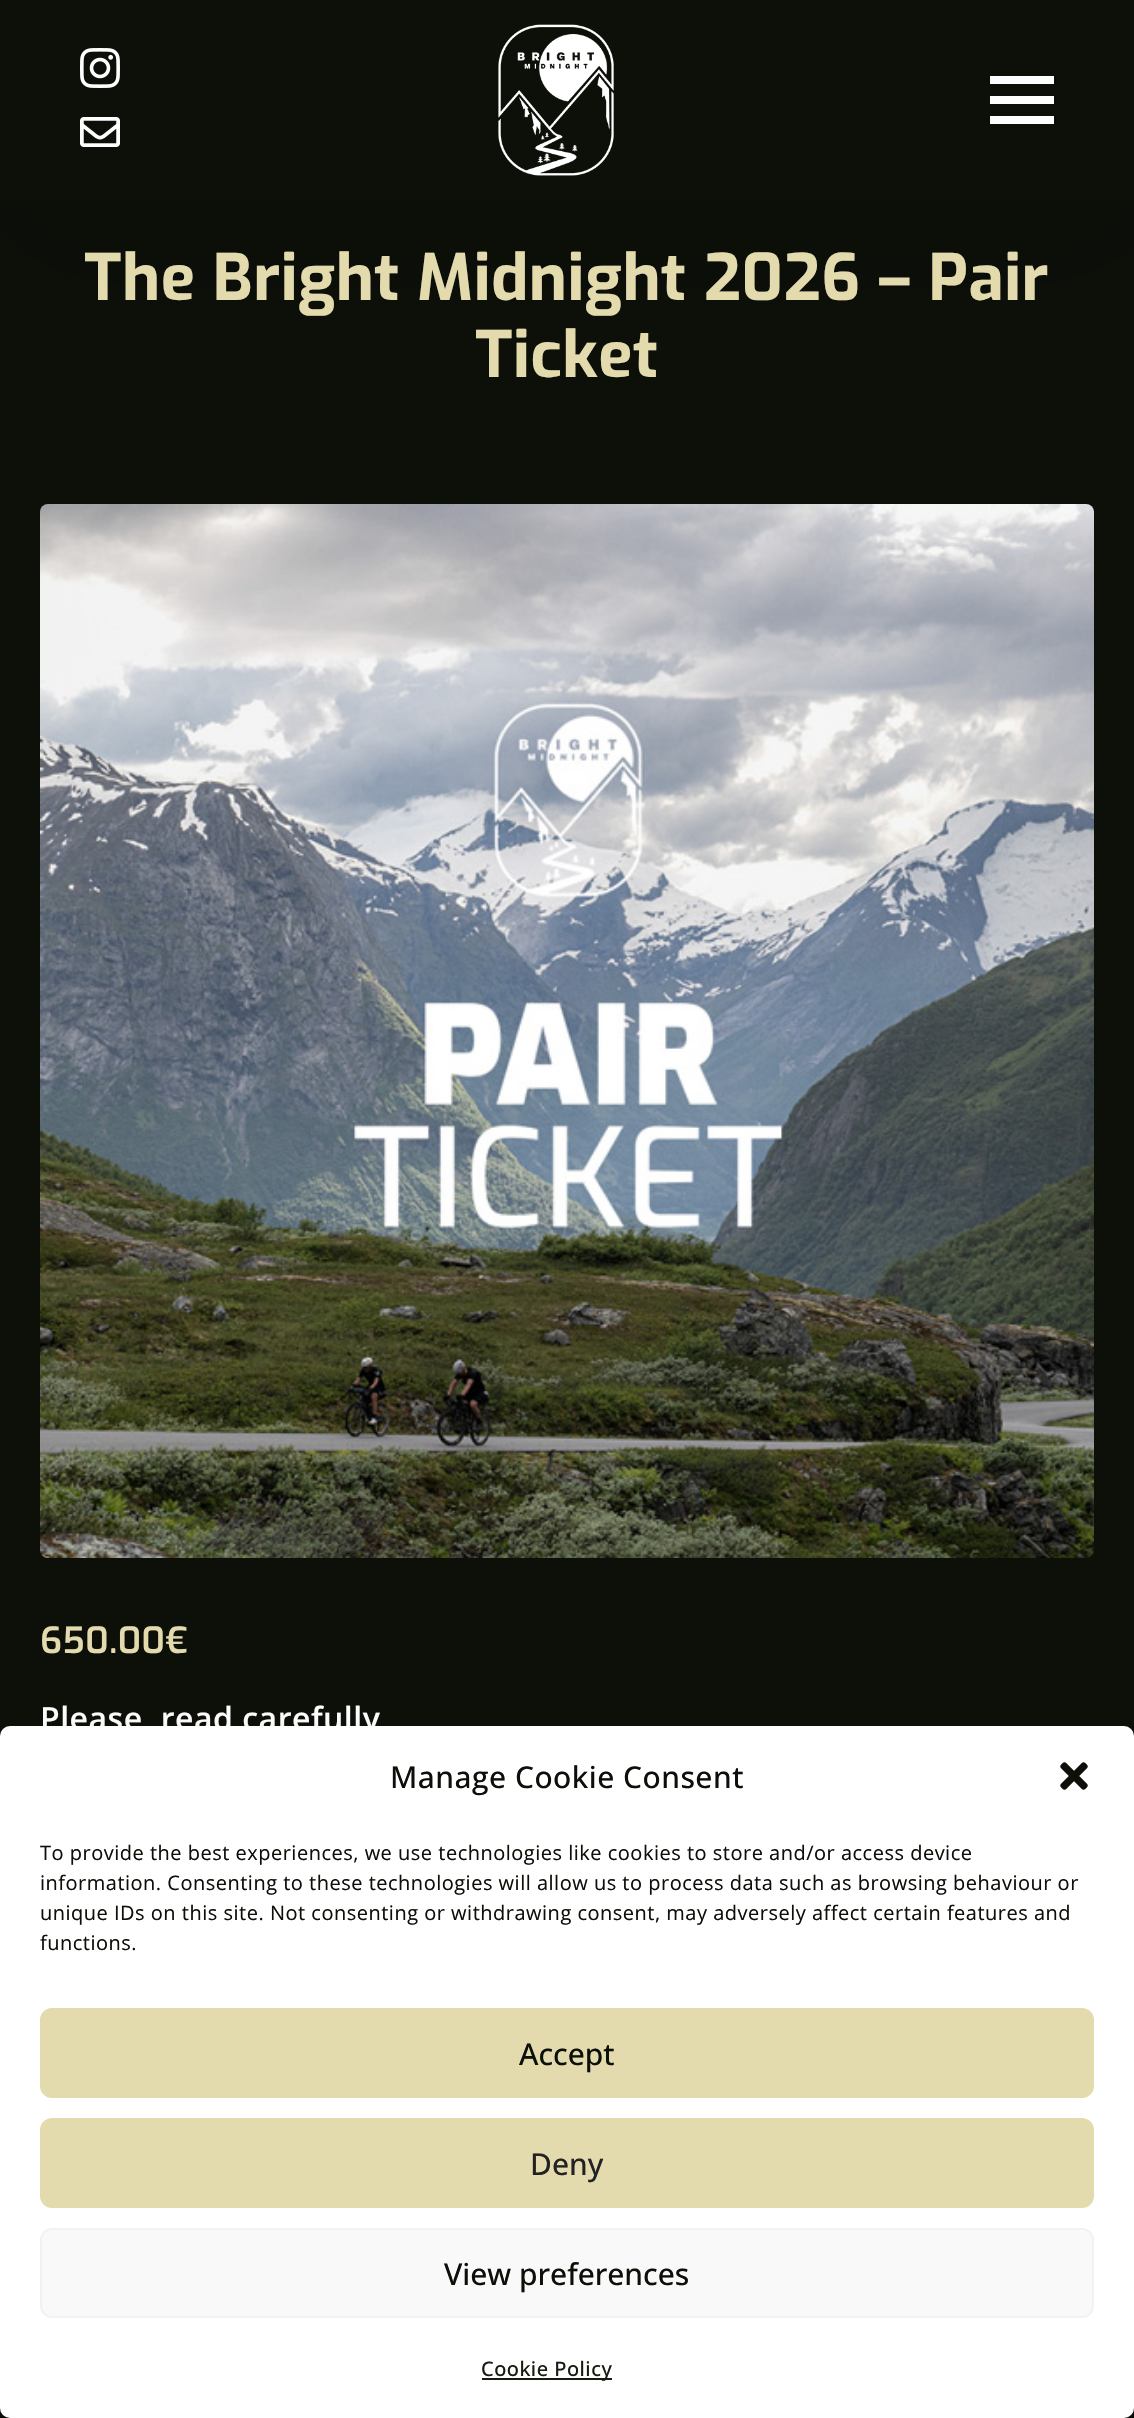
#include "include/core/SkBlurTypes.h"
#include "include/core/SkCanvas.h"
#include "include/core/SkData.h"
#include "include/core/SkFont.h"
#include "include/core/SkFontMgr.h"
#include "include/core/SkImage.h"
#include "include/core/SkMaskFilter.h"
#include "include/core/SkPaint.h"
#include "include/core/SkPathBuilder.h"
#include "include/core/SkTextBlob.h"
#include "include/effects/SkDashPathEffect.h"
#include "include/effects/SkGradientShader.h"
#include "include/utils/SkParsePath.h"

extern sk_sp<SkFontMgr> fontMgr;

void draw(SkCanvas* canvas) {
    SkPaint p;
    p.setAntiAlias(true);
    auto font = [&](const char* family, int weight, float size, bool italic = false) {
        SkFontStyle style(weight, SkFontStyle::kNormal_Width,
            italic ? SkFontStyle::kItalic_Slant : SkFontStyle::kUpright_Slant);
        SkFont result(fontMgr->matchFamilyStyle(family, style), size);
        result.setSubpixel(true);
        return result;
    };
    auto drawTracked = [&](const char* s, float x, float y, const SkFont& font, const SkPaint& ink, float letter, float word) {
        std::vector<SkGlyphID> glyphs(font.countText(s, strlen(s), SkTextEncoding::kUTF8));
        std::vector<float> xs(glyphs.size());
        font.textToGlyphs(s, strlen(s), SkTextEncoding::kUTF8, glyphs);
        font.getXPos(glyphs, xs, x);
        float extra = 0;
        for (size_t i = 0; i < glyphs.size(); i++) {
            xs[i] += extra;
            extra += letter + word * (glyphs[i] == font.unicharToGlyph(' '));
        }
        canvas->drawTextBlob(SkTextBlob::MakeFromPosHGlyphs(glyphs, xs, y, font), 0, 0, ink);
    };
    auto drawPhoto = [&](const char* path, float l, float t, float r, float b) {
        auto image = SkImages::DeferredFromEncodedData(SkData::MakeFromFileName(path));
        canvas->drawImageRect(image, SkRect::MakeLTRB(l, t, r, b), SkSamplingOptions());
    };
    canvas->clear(0xFF0D1009);
    canvas->save();
    canvas->clipRect(SkRect::MakeLTRB(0, 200, 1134, 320));
    p.setColor(0x24000000);
    p.setMaskFilter(SkMaskFilter::MakeBlur(kNormal_SkBlurStyle, 75));
    canvas->drawRect(SkRect::MakeLTRB(10, 40, 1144, 240), p);
    p.setMaskFilter(nullptr);
    canvas->restore();
    drawPhoto("media/1.png", 80, 48, 120, 88);
    drawPhoto("media/2.png", 80, 117, 120, 147);
    drawPhoto("media/3.png", 498, 24, 614, 176);
    {
        const struct { float l, t, r, b; SkColor color; } items[] = {
            {990, 96, 1054, 104, 0xFFFFFFFF},
            {990, 76, 1054, 84, 0xFFFFFFFF},
            {990, 116, 1054, 124, 0xFFFFFFFF},
        };
        for (auto [l, t, r, b, color] : items) {
            p.setColor(color);
            canvas->drawRect(SkRect::MakeLTRB(l, t, r, b), p);
        }
    }
    auto font1 = font("Exo", 700, 64);
    p.setColor(0xFFE3DBAD);
    drawTracked("The Bright Midnight 2026 – Pair", 84, 300, font1, p, 0.5f, 0);
    drawTracked("Ticket", 475, 377, font1, p, 0.5f, 0);
    drawPhoto("media/4.png", 40, 504, 1094, 1558);
    auto font2 = font("Exo", 600, 36);
    drawTracked("650.00€", 40, 1653, font2, p, 0.5f, 0);
    auto font3 = font("Open Sans", 600, 32);
    p.setColor(0xFFFFFFFF);
    drawTracked("Please, read carefully", 40, 1730, font3, p, 0.5f, 0);
    p.setColor(0x3B000000);
    p.setMaskFilter(SkMaskFilter::MakeBlur(kNormal_SkBlurStyle, 6));
    canvas->drawRoundRect(SkRect::MakeLTRB(0, 1738, 1134, 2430), 10, 10, p);
    p.setMaskFilter(nullptr);
    p.setColor(0x30000000);
    p.setMaskFilter(SkMaskFilter::MakeBlur(kNormal_SkBlurStyle, 20));
    canvas->drawRoundRect(SkRect::MakeLTRB(0, 1746, 1134, 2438), 10, 10, p);
    p.setMaskFilter(nullptr);
    p.setColor(0xFFFFFFFF);
    canvas->drawRoundRect(SkRect::MakeLTRB(0, 1726, 1134, 2418), 10, 10, p);
    auto font4 = font("Open Sans", 500, 30);
    p.setColor(0xFF0D1009);
    drawTracked("Manage Cookie Consent", 390, 1788, font4, p, 0.5f, 0);
    drawPhoto("media/5.png", 1060, 1762, 1088, 1790);
    auto font5 = font("Open Sans", 400, 20);
    {
        const struct { const char* s; float x, y; } items[] = {
            {"To provide the best experiences, we use technologies like cookies to store and/or access device", 40, 1860},
            {"information. Consenting to these technologies will allow us to process data such as browsing behaviour or", 40, 1890},
            {"unique IDs on this site. Not consenting or withdrawing consent, may adversely affect certain features and", 40, 1920},
            {"functions.", 40, 1950},
        };
        for (auto [s, x, y] : items) {
            drawTracked(s, x, y, font5, p, 0.5f, 0);
        }
    }
    p.setColor(0xFFE3DBAD);
    canvas->drawRoundRect(SkRect::MakeLTRB(41, 2009, 1093, 2097), 11, 11, p);
    p.setStyle(SkPaint::kStroke_Style);
    p.setStrokeWidth(2);
    canvas->drawRoundRect(SkRect::MakeLTRB(41, 2009, 1093, 2097), 11, 11, p);
    p.setStyle(SkPaint::kFill_Style);
    p.setColor(0xFF0D1009);
    canvas->drawString("Accept", 519, 2065, font4, p);
    p.setColor(0xFFE3DBAD);
    canvas->drawRoundRect(SkRect::MakeLTRB(41, 2119, 1093, 2207), 11, 11, p);
    p.setStyle(SkPaint::kStroke_Style);
    canvas->drawRoundRect(SkRect::MakeLTRB(41, 2119, 1093, 2207), 11, 11, p);
    p.setStyle(SkPaint::kFill_Style);
    p.setColor(0xFF222222);
    canvas->drawString("Deny", 530, 2175, font4, p);
    p.setColor(0xFFF9F9F9);
    canvas->drawRoundRect(SkRect::MakeLTRB(41, 2229, 1093, 2317), 11, 11, p);
    p.setStyle(SkPaint::kStroke_Style);
    p.setColor(0xFFF2F2F2);
    canvas->drawRoundRect(SkRect::MakeLTRB(41, 2229, 1093, 2317), 11, 11, p);
    p.setStyle(SkPaint::kFill_Style);
    p.setColor(0xFF0D1009);
    canvas->drawString("View preferences", 444, 2285, font4, p);
    p.setColor(0xFF161C10);
    canvas->drawRect(SkRect::MakeLTRB(482, 2378, 612, 2380), p);
    auto font6 = font("Open Sans", 500, 20);
    drawTracked("Cookie Policy", 481, 2376, font6, p, 0.5f, 0);
}
